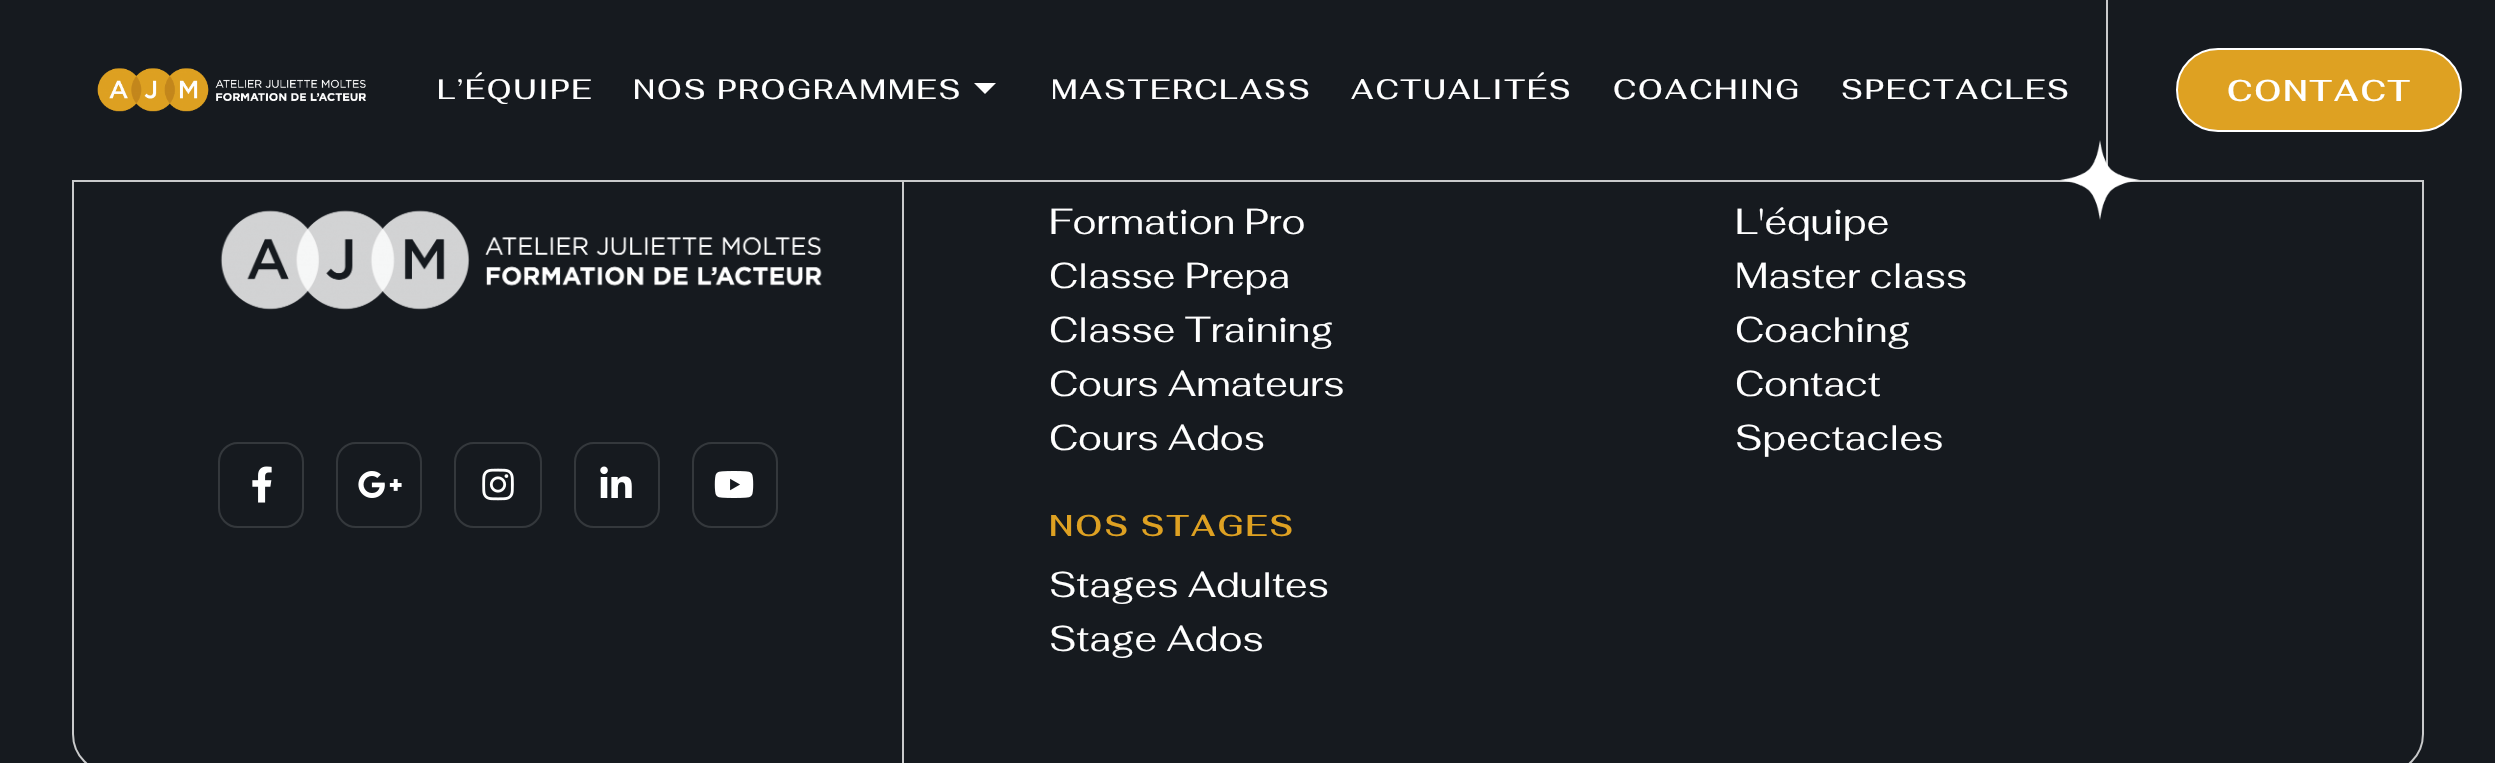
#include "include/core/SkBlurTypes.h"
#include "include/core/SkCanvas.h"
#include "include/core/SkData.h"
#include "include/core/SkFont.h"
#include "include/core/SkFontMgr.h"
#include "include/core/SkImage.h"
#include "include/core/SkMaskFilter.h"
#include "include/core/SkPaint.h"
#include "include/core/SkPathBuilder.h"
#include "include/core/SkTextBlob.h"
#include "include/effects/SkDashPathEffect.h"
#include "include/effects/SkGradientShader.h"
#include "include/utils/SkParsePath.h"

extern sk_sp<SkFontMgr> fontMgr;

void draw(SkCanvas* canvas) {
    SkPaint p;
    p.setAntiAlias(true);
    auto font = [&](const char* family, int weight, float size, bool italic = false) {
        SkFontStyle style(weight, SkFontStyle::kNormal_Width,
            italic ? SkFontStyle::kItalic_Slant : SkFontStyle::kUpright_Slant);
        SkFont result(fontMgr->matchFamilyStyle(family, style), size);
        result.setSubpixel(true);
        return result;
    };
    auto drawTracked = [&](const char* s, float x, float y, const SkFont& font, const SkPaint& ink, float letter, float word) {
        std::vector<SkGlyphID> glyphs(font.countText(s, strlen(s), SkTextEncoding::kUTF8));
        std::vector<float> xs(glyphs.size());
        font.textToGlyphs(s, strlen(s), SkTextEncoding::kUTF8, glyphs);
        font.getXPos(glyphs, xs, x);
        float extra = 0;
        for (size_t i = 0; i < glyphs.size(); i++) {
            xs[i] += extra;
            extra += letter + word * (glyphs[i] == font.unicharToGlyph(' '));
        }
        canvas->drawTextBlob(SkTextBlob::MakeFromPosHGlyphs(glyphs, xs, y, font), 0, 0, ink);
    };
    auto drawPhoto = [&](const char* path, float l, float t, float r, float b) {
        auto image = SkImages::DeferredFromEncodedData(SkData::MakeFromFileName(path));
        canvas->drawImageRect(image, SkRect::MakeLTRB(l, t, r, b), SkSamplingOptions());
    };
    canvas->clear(0xFF161A1F);
    p.setStyle(SkPaint::kStroke_Style);
    p.setStrokeWidth(2);
    p.setColor(0xFFC9CACB);
    canvas->drawRoundRect(SkRect::MakeLTRB(73, -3, 2423, 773), 39, 39, p);
    p.setStyle(SkPaint::kFill_Style);
    p.setColor(0xFF161A1F);
    canvas->drawRect(SkRect::MakeLTRB(72, 0, 2424, 182), p);
    p.setColor(0xFFC9CACB);
    canvas->drawRect(SkRect::MakeLTRB(72, 180, 2424, 182), p);
    drawPhoto("media/1.png", 97, 68, 366, 112);
    auto font1 = font("Fahkwang", 500, 28);
    p.setColor(0xFFFFFFFF);
    drawTracked("L’ÉQUIPE", 437, 99, font1, p, 2, 0);
    drawTracked("NOS PROGRAMMES", 633, 99, font1, p, 2, 0);
    canvas->drawPath(SkPathBuilder().moveTo(974, 83).lineTo(996, 83).lineTo(985, 94).close().detach(), p);
    {
        const struct { const char* s; float x, y; } items[] = {
            {"MASTERCLASS", 1051, 99},
            {"ACTUALITÉS", 1351, 99},
            {"COACHING", 1613, 99},
            {"SPECTACLES", 1841, 99},
        };
        for (auto [s, x, y] : items) {
            drawTracked(s, x, y, font1, p, 2, 0);
        }
    }
    p.setColor(0xFFC9CACB);
    canvas->drawRect(SkRect::MakeLTRB(2106, 0, 2108, 166), p);
    drawPhoto("media/2.png", 2060, 140, 2140, 220);
    p.setColor(0xFFDEA122);
    canvas->drawRoundRect(SkRect::MakeLTRB(2177, 49, 2461, 131), 41, 41, p);
    p.setStyle(SkPaint::kStroke_Style);
    p.setColor(0xFFFFFFFF);
    canvas->drawRoundRect(SkRect::MakeLTRB(2177, 49, 2461, 131), 41, 41, p);
    auto font2 = font("Fahkwang", 600, 30);
    p.setStyle(SkPaint::kFill_Style);
    drawTracked("CONTACT", 2227, 101, font2, p, 2, 0);
    p.setColor(0xFFC9CACB);
    canvas->drawRect(SkRect::MakeLTRB(902, 182, 904, 763), p);
    drawPhoto("media/3.png", 220, 210, 822, 310);
    p.setStyle(SkPaint::kStroke_Style);
    p.setColor(0xFF34383C);
    canvas->drawRoundRect(SkRect::MakeLTRB(219, 443, 303, 527), 19, 19, p);
    drawPhoto("media/4.png", 252, 466, 272, 503);
    canvas->drawRoundRect(SkRect::MakeLTRB(337, 443, 421, 527), 19, 19, p);
    drawPhoto("media/5.png", 358, 471, 402, 498);
    canvas->drawRoundRect(SkRect::MakeLTRB(455, 443, 541, 527), 19, 19, p);
    drawPhoto("media/6.png", 482, 468, 514, 501);
    canvas->drawRoundRect(SkRect::MakeLTRB(575, 443, 659, 527), 19, 19, p);
    drawPhoto("media/7.png", 600, 466, 632, 498);
    canvas->drawRoundRect(SkRect::MakeLTRB(693, 443, 777, 527), 19, 19, p);
    drawPhoto("media/8.png", 714, 471, 754, 498);
    auto font3 = font("Fahkwang", 400, 36);
    p.setStyle(SkPaint::kFill_Style);
    p.setColor(0xFFFFFFFF);
    {
        const struct { const char* s; float x, y; } items[] = {
            {"Formation Pro", 1049, 234},
            {"Classe Prepa", 1049, 288},
            {"Classe Training", 1049, 342},
            {"Cours Amateurs", 1049, 396},
            {"Cours Ados", 1049, 450},
        };
        for (auto [s, x, y] : items) {
            canvas->drawString(s, x, y, font3, p);
        }
    }
    p.setColor(0xFFDEA122);
    drawTracked("NOS STAGES", 1049, 536, font2, p, 2, 0);
    p.setColor(0xFFFFFFFF);
    {
        const struct { const char* s; float x, y; } items[] = {
            {"Stages Adultes", 1049, 597},
            {"Stage Ados", 1049, 651},
            {"L'équipe", 1735, 234},
            {"Master class", 1735, 288},
            {"Coaching", 1735, 342},
            {"Contact", 1735, 396},
            {"Spectacles", 1735, 450},
        };
        for (auto [s, x, y] : items) {
            canvas->drawString(s, x, y, font3, p);
        }
    }
}
